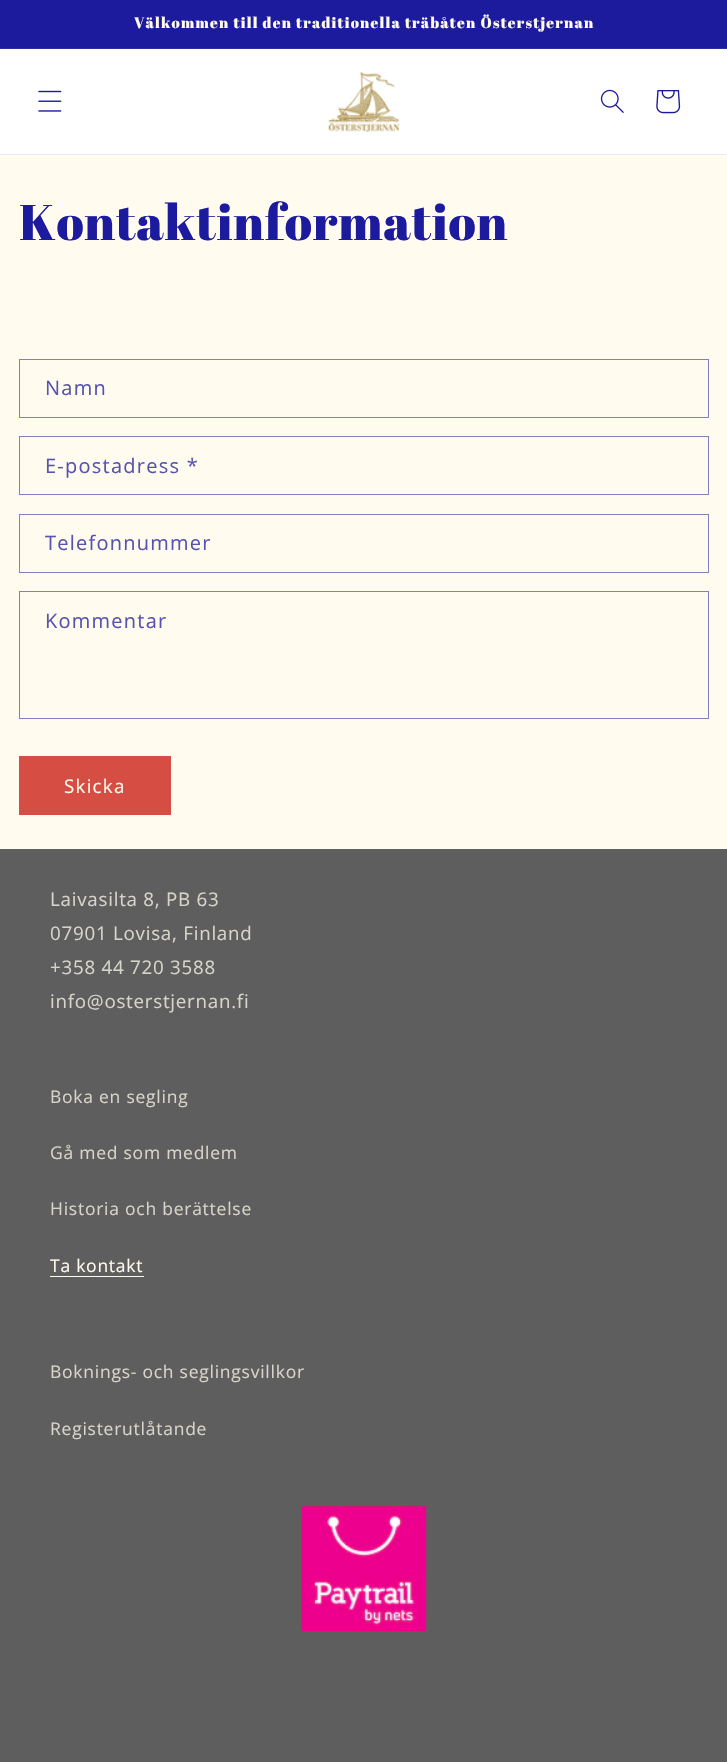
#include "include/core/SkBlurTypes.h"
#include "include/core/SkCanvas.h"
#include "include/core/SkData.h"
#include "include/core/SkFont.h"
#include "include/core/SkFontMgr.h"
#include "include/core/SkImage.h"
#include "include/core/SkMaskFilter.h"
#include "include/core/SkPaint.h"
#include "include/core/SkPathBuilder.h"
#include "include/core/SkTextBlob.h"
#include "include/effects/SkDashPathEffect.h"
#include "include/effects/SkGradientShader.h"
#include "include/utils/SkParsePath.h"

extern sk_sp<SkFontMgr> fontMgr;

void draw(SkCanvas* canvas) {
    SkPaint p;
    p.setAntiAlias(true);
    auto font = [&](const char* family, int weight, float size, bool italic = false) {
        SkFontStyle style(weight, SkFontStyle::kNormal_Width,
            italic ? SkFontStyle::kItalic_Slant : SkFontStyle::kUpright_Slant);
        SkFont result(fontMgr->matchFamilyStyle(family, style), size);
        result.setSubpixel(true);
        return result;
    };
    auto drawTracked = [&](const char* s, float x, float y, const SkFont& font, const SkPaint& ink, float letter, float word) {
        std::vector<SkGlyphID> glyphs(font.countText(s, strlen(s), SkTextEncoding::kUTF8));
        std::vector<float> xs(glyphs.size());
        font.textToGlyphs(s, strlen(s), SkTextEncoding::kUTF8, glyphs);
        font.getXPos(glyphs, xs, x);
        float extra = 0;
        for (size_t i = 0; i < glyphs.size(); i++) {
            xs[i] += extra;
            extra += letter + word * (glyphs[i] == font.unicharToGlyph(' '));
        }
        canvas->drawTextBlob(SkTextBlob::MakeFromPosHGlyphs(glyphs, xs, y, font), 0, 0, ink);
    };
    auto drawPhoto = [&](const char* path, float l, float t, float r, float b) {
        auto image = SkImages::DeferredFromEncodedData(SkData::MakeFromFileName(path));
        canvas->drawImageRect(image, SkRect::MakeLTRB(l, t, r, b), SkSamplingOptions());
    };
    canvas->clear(0xFFFFFBEF);
    p.setColor(0xFF1D1B9D);
    canvas->drawRect(SkRect::MakeLTRB(0, 0, 727, 48), p);
    p.setColor(0xFF2F2DA4);
    canvas->drawRect(SkRect::MakeLTRB(0, 48, 727, 49), p);
    auto font1 = font("Abril Fatface", 400, 15);
    p.setColor(0xFFFFFBEF);
    drawTracked("Välkommen till den traditionella träbåten Österstjernan", 134, 28, font1, p, 1.25f, 0);
    p.setColor(0xFFFFFFFF);
    canvas->drawRect(SkRect::MakeLTRB(0, 49, 727, 154), p);
    p.setColor(0xFFEDEDF7);
    canvas->drawRect(SkRect::MakeLTRB(0, 154, 727, 155), p);
    drawPhoto("media/1.png", 38, 90, 62, 112);
    drawPhoto("media/2.png", 328, 71, 400, 133);
    drawPhoto("media/3.png", 600, 89, 624, 113);
    drawPhoto("media/4.png", 656, 90, 681, 114);
    auto font2 = font("Abril Fatface", 400, 50);
    p.setColor(0xFF1D1B9D);
    drawTracked("Kontaktinformation", 19, 240, font2, p, 0.75f, 0);
    p.setStyle(SkPaint::kStroke_Style);
    p.setStrokeWidth(1);
    p.setColor(0xFF8380C2);
    canvas->drawRect(SkRect::MakeLTRB(19.5f, 359.5f, 708.5f, 417.5f), p);
    auto font3 = font("Open Sans", 400, 20);
    p.setStyle(SkPaint::kFill_Style);
    p.setColor(0xFF5653B2);
    drawTracked("Namn", 45, 395, font3, p, 1.25f, 0);
    p.setStyle(SkPaint::kStroke_Style);
    p.setColor(0xFF8380C2);
    canvas->drawRect(SkRect::MakeLTRB(19.5f, 436.5f, 708.5f, 494.5f), p);
    p.setStyle(SkPaint::kFill_Style);
    p.setColor(0xFF5653B2);
    drawTracked("E-postadress *", 45, 473, font3, p, 1.25f, 0);
    p.setStyle(SkPaint::kStroke_Style);
    p.setColor(0xFF8380C2);
    canvas->drawRect(SkRect::MakeLTRB(19.5f, 514.5f, 708.5f, 572.5f), p);
    p.setStyle(SkPaint::kFill_Style);
    p.setColor(0xFF5653B2);
    drawTracked("Telefonnummer", 45, 550, font3, p, 1.25f, 0);
    p.setStyle(SkPaint::kStroke_Style);
    p.setColor(0xFF8380C2);
    canvas->drawRect(SkRect::MakeLTRB(19.5f, 591.5f, 708.5f, 718.5f), p);
    p.setStyle(SkPaint::kFill_Style);
    p.setColor(0xFF5653B2);
    drawTracked("Kommentar", 45, 628, font3, p, 1.25f, 0);
    p.setColor(0xFFD54D43);
    canvas->drawRect(SkRect::MakeLTRB(19, 756, 171, 815), p);
    auto font4 = font("Open Sans", 400, 18.75f);
    p.setColor(0xFFFFFBEF);
    drawTracked("Skicka", 64, 793, font4, p, 1.25f, 0);
    p.setColor(0xFF5E5E5E);
    canvas->drawRect(SkRect::MakeLTRB(0, 849, 727, 1762), p);
    p.setColor(0xFFD7D4CB);
    {
        const struct { const char* s; float x, y; } items[] = {
            {"Laivasilta 8, PB 63", 50, 906},
            {"07901 Lovisa, Finland", 50, 940},
            {"+358 44 720 3588", 50, 974},
            {"info@osterstjernan.fi", 50, 1008},
        };
        for (auto [s, x, y] : items) {
            drawTracked(s, x, y, font4, p, 0.75f, 0);
        }
    }
    auto font5 = font("Open Sans", 400, 17.5f);
    {
        const struct { const char* s; float x, y; } items[] = {
            {"Boka en segling", 50, 1103},
            {"Gå med som medlem", 50, 1159},
            {"Historia och berättelse", 50, 1215},
        };
        for (auto [s, x, y] : items) {
            drawTracked(s, x, y, font5, p, 0.75f, 0);
        }
    }
    p.setColor(0xFFFFFBEF);
    drawTracked("Ta kontakt", 50, 1272, font5, p, 0.75f, 0);
    canvas->drawRect(SkRect::MakeLTRB(50, 1276, 144, 1277), p);
    p.setColor(0xFFD7D4CB);
    drawTracked("Boknings- och seglingsvillkor", 50, 1378, font5, p, 0.75f, 0);
    drawTracked("Registerutlåtande", 50, 1435, font5, p, 0.75f, 0);
    drawPhoto("media/5.png", 301, 1506, 427, 1632);
}
